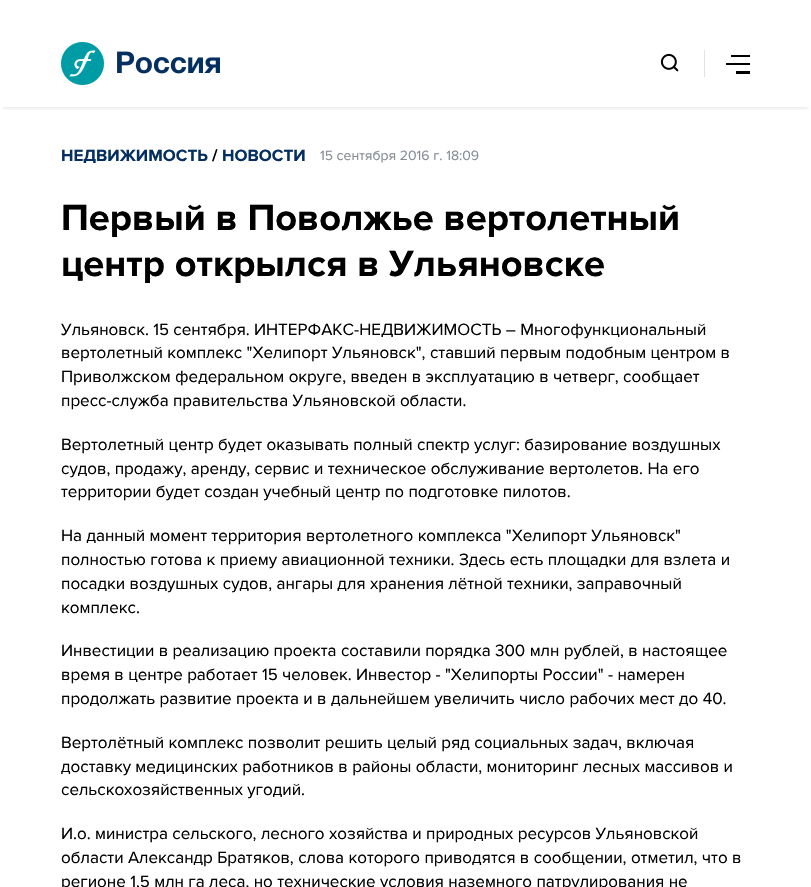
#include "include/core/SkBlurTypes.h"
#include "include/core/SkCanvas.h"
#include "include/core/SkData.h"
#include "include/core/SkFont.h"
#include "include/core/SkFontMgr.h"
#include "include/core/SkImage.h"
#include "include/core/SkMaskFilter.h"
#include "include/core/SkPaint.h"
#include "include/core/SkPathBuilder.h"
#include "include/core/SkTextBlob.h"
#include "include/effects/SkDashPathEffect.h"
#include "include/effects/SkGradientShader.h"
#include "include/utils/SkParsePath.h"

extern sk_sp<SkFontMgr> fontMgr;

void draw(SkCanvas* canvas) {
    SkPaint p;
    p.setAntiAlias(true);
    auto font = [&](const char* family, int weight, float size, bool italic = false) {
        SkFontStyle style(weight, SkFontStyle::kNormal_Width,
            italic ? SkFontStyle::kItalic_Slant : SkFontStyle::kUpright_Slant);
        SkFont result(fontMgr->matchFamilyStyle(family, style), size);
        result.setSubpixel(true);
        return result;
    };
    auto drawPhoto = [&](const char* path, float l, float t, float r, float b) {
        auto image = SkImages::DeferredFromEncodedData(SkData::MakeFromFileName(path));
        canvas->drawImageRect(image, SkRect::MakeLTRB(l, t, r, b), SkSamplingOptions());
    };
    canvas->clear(0xFFFFFFFF);
    canvas->save();
    canvas->clipRect(SkRect::MakeLTRB(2, 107, 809, 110));
    p.setColor(0x1A000000);
    p.setMaskFilter(SkMaskFilter::MakeBlur(kNormal_SkBlurStyle, 2));
    canvas->drawRect(SkRect::MakeLTRB(3, 27, 808, 108), p);
    p.setMaskFilter(nullptr);
    canvas->restore();
    drawPhoto("media/1.png", 61, 42, 220, 85);
    p.setColor(0xFFDEE2E9);
    canvas->drawRect(SkRect::MakeLTRB(704, 50, 705, 77), p);
    drawPhoto("media/2.png", 660, 53, 679, 72);
    {
        const struct { float l, t, r, b; SkColor color; } items[] = {
            {731, 55, 750, 57, 0xFF000000},
            {726, 63, 750, 65, 0xFF000000},
            {736, 71, 750, 74, 0xFF000000},
        };
        for (auto [l, t, r, b, color] : items) {
            p.setColor(color);
            canvas->drawRect(SkRect::MakeLTRB(l, t, r, b), p);
        }
    }
    auto font1 = font("Proxima Nova", 700, 17);
    p.setColor(0xFF042F60);
    canvas->drawString("НЕДВИЖИМОСТЬ", 61, 161, font1, p);
    p.setColor(0xFF000000);
    canvas->drawString("/", 212, 161, font1, p);
    p.setColor(0xFF042F60);
    canvas->drawString("НОВОСТИ", 222, 161, font1, p);
    auto font2 = font("Proxima Nova", 400, 14);
    p.setColor(0xFF858C95);
    canvas->drawString("15 сентября 2016 г. 18:09", 320, 160, font2, p);
    auto font3 = font("Proxima Nova", 700, 38);
    p.setColor(0xFF000000);
    canvas->drawString("Первый в Поволжье вертолетный", 61, 230, font3, p);
    canvas->drawString("центр открылся в Ульяновске", 61, 276, font3, p);
    auto font4 = font("Proxima Nova", 400, 17);
    {
        const struct { const char* s; float x, y; } items[] = {
            {"Ульяновск. 15 сентября. ИНТЕРФАКС-НЕДВИЖИМОСТЬ – Многофункциональный", 61, 335},
            {"вертолетный комплекс \"Хелипорт Ульяновск\", ставший первым подобным центром в", 61, 358},
            {"Приволжском федеральном округе, введен в эксплуатацию в четверг, сообщает", 61, 382},
            {"пресс-служба правительства Ульяновской области.", 61, 406},
            {"Вертолетный центр будет оказывать полный спектр услуг: базирование воздушных", 61, 450},
            {"судов, продажу, аренду, сервис и техническое обслуживание вертолетов. На его", 61, 474},
            {"территории будет создан учебный центр по подготовке пилотов.", 61, 497},
            {"На данный момент территория вертолетного комплекса \"Хелипорт Ульяновск\"", 61, 541},
            {"полностью готова к приему авиационной техники. Здесь есть площадки для взлета и", 61, 565},
            {"посадки воздушных судов, ангары для хранения лётной техники, заправочный", 61, 589},
            {"комплекс.", 61, 613},
            {"Инвестиции в реализацию проекта составили порядка 300 млн рублей, в настоящее", 61, 656},
            {"время в центре работает 15 человек. Инвестор - \"Хелипорты России\" - намерен", 61, 680},
            {"продолжать развитие проекта и в дальнейшем увеличить число рабочих мест до 40.", 61, 704},
            {"Вертолётный комплекс позволит решить целый ряд социальных задач, включая", 61, 748},
            {"доставку медицинских работников в районы области, мониторинг лесных массивов и", 61, 772},
            {"сельскохозяйственных угодий.", 61, 795},
            {"И.о. министра сельского, лесного хозяйства и природных ресурсов Ульяновской", 61, 839},
            {"области Александр Братяков, слова которого приводятся в сообщении, отметил, что в", 61, 863},
            {"регионе 1,5 млн га леса, но технические условия наземного патрулирования не", 61, 887},
        };
        for (auto [s, x, y] : items) {
            canvas->drawString(s, x, y, font4, p);
        }
    }
}
